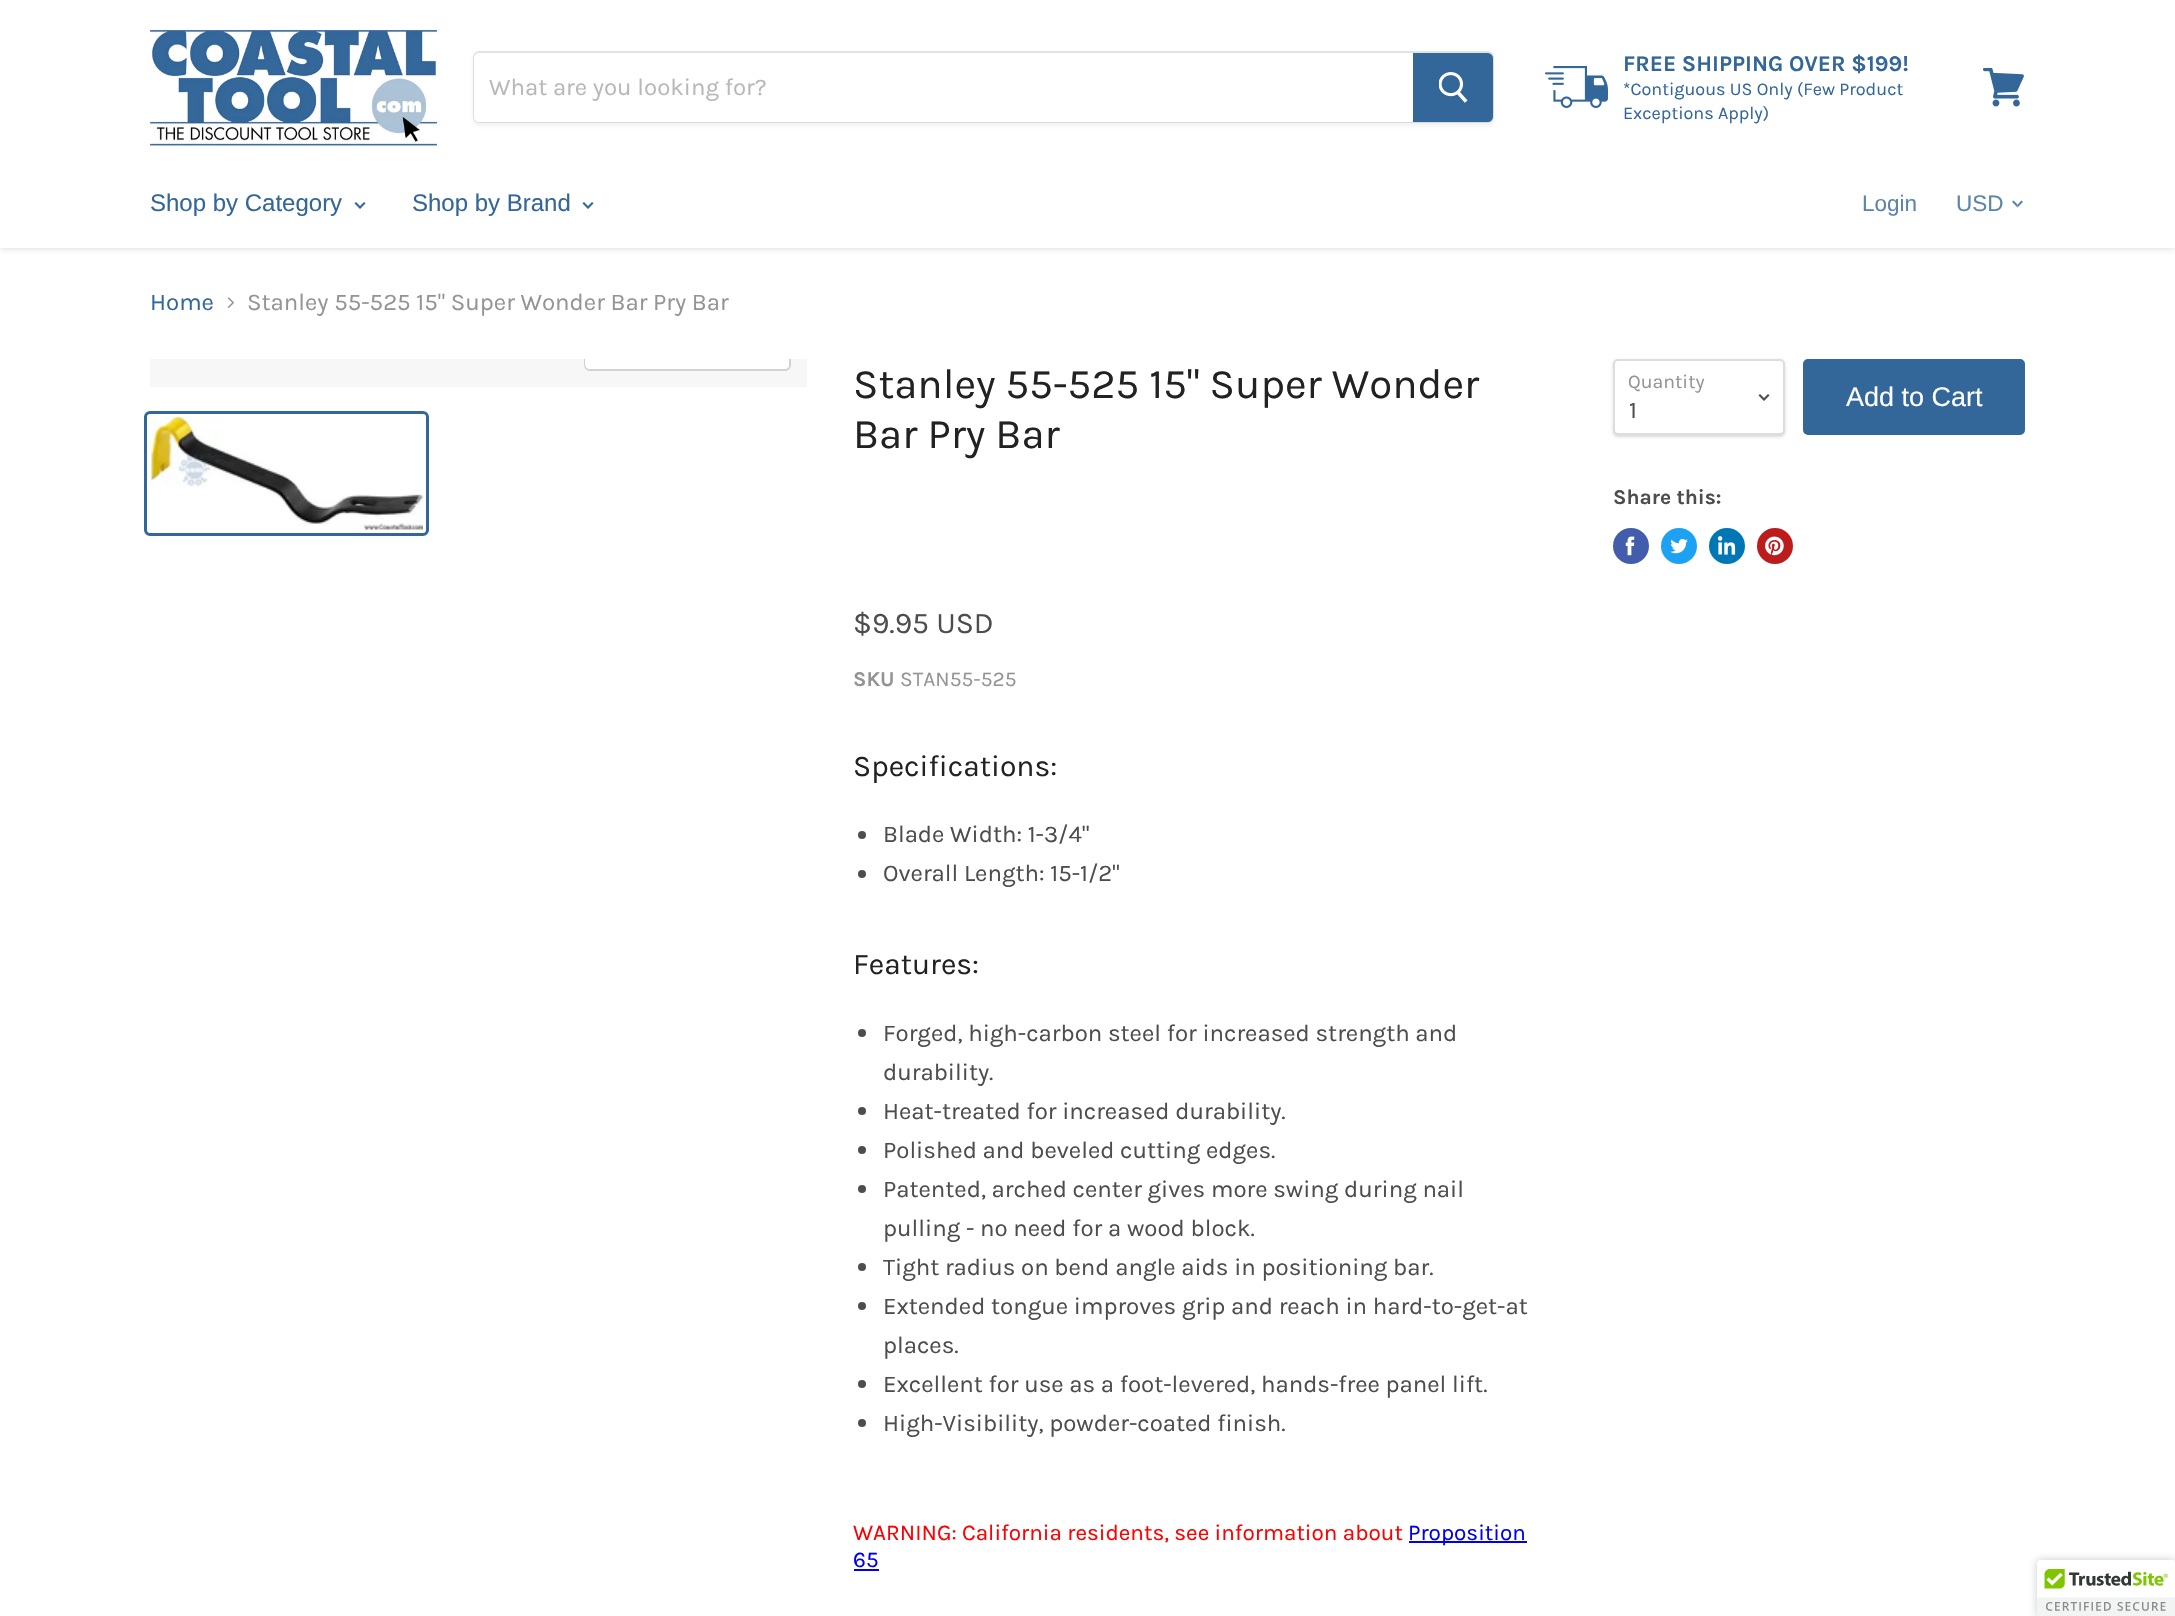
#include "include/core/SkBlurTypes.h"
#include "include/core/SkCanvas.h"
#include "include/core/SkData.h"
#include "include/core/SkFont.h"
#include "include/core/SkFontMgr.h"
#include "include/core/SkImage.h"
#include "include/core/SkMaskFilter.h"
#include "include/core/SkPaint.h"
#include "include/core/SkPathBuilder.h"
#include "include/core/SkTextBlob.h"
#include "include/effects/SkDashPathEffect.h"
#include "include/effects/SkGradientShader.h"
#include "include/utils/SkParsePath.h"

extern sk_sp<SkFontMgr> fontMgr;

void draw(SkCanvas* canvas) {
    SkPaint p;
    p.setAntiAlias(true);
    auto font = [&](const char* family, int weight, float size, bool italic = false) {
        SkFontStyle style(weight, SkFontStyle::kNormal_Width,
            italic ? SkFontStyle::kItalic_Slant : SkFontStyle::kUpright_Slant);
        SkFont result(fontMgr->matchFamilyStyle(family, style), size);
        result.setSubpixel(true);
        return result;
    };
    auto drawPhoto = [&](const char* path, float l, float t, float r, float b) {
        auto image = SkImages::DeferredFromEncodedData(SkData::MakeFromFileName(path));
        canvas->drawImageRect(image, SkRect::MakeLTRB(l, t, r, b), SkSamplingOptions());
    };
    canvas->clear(0xFFFFFFFF);
    p.setColor(0x407F7F7F);
    p.setMaskFilter(SkMaskFilter::MakeBlur(kNormal_SkBlurStyle, 3));
    canvas->drawRect(SkRect::MakeLTRB(0, 2, 2175, 249), p);
    p.setMaskFilter(nullptr);
    p.setColor(0xFFFFFFFF);
    canvas->drawRect(SkRect::MakeLTRB(0, 0, 2175, 248), p);
    drawPhoto("media/1.png", 150, 30, 437, 146);
    p.setColor(0x1C7F7F7F);
    p.setMaskFilter(SkMaskFilter::MakeBlur(kNormal_SkBlurStyle, 2));
    canvas->drawRoundRect(SkRect::MakeLTRB(473, 54, 1494, 126), 6, 6, p);
    p.setMaskFilter(nullptr);
    p.setStyle(SkPaint::kStroke_Style);
    p.setStrokeWidth(2);
    p.setColor(0x337F7F7F);
    canvas->drawRoundRect(SkRect::MakeLTRB(474, 52, 1493, 122), 5, 5, p);
    p.setStyle(SkPaint::kFill_Style);
    p.setColor(0xFFFFFFFF);
    canvas->drawPath(SkPathBuilder().moveTo(479, 53).lineTo(1413, 53).lineTo(1413, 122).lineTo(479, 122).cubicTo(476, 122, 474, 120, 474, 117).lineTo(474, 58).cubicTo(474, 55, 476, 53, 479, 53).close().detach(), p);
    auto font1 = font("Karla", 400, 24);
    p.setColor(0xFFB8B8B8);
    canvas->drawString("What are you looking for?", 489, 95, font1, p);
    p.setColor(0xFF336699);
    canvas->drawPath(SkPathBuilder().moveTo(1414, 54).lineTo(1488, 54).cubicTo(1490, 54, 1492, 56, 1492, 58).lineTo(1492, 117).cubicTo(1492, 119, 1490, 121, 1488, 121).lineTo(1414, 121).close().detach(), p);
    p.setStyle(SkPaint::kStroke_Style);
    canvas->drawPath(SkPathBuilder().moveTo(1414, 54).lineTo(1488, 54).cubicTo(1490, 54, 1492, 56, 1492, 58).lineTo(1492, 117).cubicTo(1492, 119, 1490, 121, 1488, 121).lineTo(1414, 121).close().detach(), p);
    drawPhoto("media/2.png", 1439, 72, 1468, 103);
    drawPhoto("media/3.png", 1545, 66, 1608, 108);
    auto font2 = font("Karla", 700, 22.5f);
    p.setStyle(SkPaint::kFill_Style);
    canvas->drawString("FREE SHIPPING OVER $199!", 1623, 71, font2, p);
    auto font3 = font("Karla", 400, 18);
    canvas->drawString("*Contiguous US Only (Few Product", 1623, 95, font3, p);
    canvas->drawString("Exceptions Apply)", 1623, 119, font3, p);
    drawPhoto("media/4.png", 1983, 68, 2024, 107);
    auto font4 = font("Liberation Sans", 400, 24);
    canvas->drawString("Shop by Category", 150, 211, font4, p);
    drawPhoto("media/5.png", 354, 202, 366, 209);
    canvas->drawString("Shop by Brand", 412, 211, font4, p);
    drawPhoto("media/5.png", 582, 202, 594, 209);
    auto font5 = font("Liberation Sans", 400, 22.5f);
    p.setColor(0xFF5C85AD);
    canvas->drawString("Login", 1862, 211, font5, p);
    canvas->drawString("USD", 1956, 211, font5, p);
    drawPhoto("media/6.png", 2012, 200, 2023, 208);
    p.setColor(0xFF336699);
    canvas->drawString("Home", 150, 310, font1, p);
    drawPhoto("media/7.png", 227, 297, 234, 309);
    p.setColor(0xFF949494);
    canvas->drawString("Stanley 55-525 15\" Super Wonder Bar Pry Bar", 247, 310, font1, p);
    p.setColor(0xFFF7F7F7);
    canvas->drawRect(SkRect::MakeLTRB(150, 359, 807, 387), p);
    canvas->save();
    canvas->clipRect(SkRect::MakeLTRB(150, 359, 807, 387));
    p.setStyle(SkPaint::kStroke_Style);
    p.setColor(0xFFD2D2D2);
    canvas->drawRoundRect(SkRect::MakeLTRB(585, 327, 790, 370), 5, 5, p);
    canvas->restore();
    p.setStyle(SkPaint::kFill_Style);
    p.setColor(0xE6FFFFFF);
    canvas->drawPath(SkPathBuilder().moveTo(585, 359).lineTo(789, 359).lineTo(789, 364).cubicTo(789, 367, 787, 369, 784, 369).lineTo(590, 369).cubicTo(587, 369, 585, 367, 585, 364).close().detach(), p);
    p.setStyle(SkPaint::kStroke_Style);
    p.setStrokeWidth(3);
    p.setColor(0xFF336699);
    canvas->drawRoundRect(SkRect::MakeLTRB(145.5f, 412.5f, 427.5f, 534.5f), 4.5f, 4.5f, p);
    drawPhoto("media/8.png", 150, 417, 423, 530);
    auto font6 = font("Karla", 400, 42);
    p.setStyle(SkPaint::kFill_Style);
    p.setColor(0xFF222222);
    canvas->drawString("Stanley 55-525 15\" Super Wonder", 853, 398, font6, p);
    canvas->drawString("Bar Pry Bar", 853, 448, font6, p);
    auto font7 = font("Karla", 400, 30);
    p.setColor(0xFF4D4D4D);
    canvas->drawString("$9.95 USD", 853, 633, font7, p);
    auto font8 = font("Karla", 700, 21);
    p.setColor(0xFF949494);
    canvas->drawString("SKU", 853, 686, font8, p);
    auto font9 = font("Karla", 400, 21);
    canvas->drawString("STAN55-525", 900, 686, font9, p);
    p.setColor(0xFF222222);
    canvas->drawString("Specifications:", 853, 776, font7, p);
    p.setColor(0xFF4D4D4D);
    canvas->drawCircle(862, 835, 4, p);
    canvas->drawString("Blade Width: 1-3/4\"", 883, 842, font1, p);
    canvas->drawCircle(862, 874, 4, p);
    canvas->drawString("Overall Length: 15-1/2\"", 883, 881, font1, p);
    p.setColor(0xFF222222);
    canvas->drawString("Features:", 853, 974, font7, p);
    p.setColor(0xFF4D4D4D);
    canvas->drawCircle(862, 1033, 4, p);
    canvas->drawString("Forged, high-carbon steel for increased strength and", 883, 1041, font1, p);
    canvas->drawString("durability.", 883, 1080, font1, p);
    canvas->drawCircle(862, 1111, 4, p);
    canvas->drawString("Heat-treated for increased durability.", 883, 1119, font1, p);
    canvas->drawCircle(862, 1150, 4, p);
    canvas->drawString("Polished and beveled cutting edges.", 883, 1158, font1, p);
    canvas->drawCircle(862, 1189, 4, p);
    canvas->drawString("Patented, arched center gives more swing during nail", 883, 1197, font1, p);
    canvas->drawString("pulling - no need for a wood block.", 883, 1236, font1, p);
    canvas->drawCircle(862, 1267, 4, p);
    canvas->drawString("Tight radius on bend angle aids in positioning bar.", 883, 1275, font1, p);
    canvas->drawCircle(862, 1306, 4, p);
    canvas->drawString("Extended tongue improves grip and reach in hard-to-get-at", 883, 1314, font1, p);
    canvas->drawString("places.", 883, 1353, font1, p);
    canvas->drawCircle(862, 1384, 4, p);
    canvas->drawString("Excellent for use as a foot-levered, hands-free panel lift.", 883, 1392, font1, p);
    canvas->drawCircle(862, 1423, 4, p);
    canvas->drawString("High-Visibility, powder-coated finish.", 883, 1431, font1, p);
    auto font10 = font("Karla", 400, 22.5f);
    p.setColor(0xFFFF0000);
    canvas->drawString("WARNING: California residents, see information about", 853, 1540, font10, p);
    p.setColor(0xFF0000EE);
    canvas->drawRect(SkRect::MakeLTRB(1409, 1541, 1527, 1543), p);
    canvas->drawString("Proposition", 1408, 1540, font10, p);
    canvas->drawString("65", 853, 1567, font10, p);
    canvas->drawRect(SkRect::MakeLTRB(854, 1569, 879, 1571), p);
    p.setColor(0x26000000);
    p.setMaskFilter(SkMaskFilter::MakeBlur(kNormal_SkBlurStyle, 1.5f));
    canvas->drawRoundRect(SkRect::MakeLTRB(1613, 360, 1785, 437), 5, 5, p);
    p.setMaskFilter(nullptr);
    p.setColor(0xFFFFFFFF);
    canvas->drawRoundRect(SkRect::MakeLTRB(1614, 360, 1784, 434), 4, 4, p);
    p.setStyle(SkPaint::kStroke_Style);
    p.setStrokeWidth(2);
    p.setColor(0xFFDDDDDD);
    canvas->drawRoundRect(SkRect::MakeLTRB(1614, 360, 1784, 434), 4, 4, p);
    auto font11 = font("Karla", 400, 19.5f);
    p.setStyle(SkPaint::kFill_Style);
    p.setColor(0xFF949494);
    canvas->drawString("Quantity", 1628, 388, font11, p);
    drawPhoto("media/9.png", 1758, 394, 1770, 401);
    p.setColor(0xFF4D4D4D);
    canvas->drawString("1", 1629, 418, font1, p);
    p.setColor(0xFF336699);
    canvas->drawRoundRect(SkRect::MakeLTRB(1804, 360, 2024, 434), 4, 4, p);
    p.setStyle(SkPaint::kStroke_Style);
    canvas->drawRoundRect(SkRect::MakeLTRB(1804, 360, 2024, 434), 4, 4, p);
    auto font12 = font("Liberation Sans", 400, 27);
    p.setStyle(SkPaint::kFill_Style);
    p.setColor(0xFFFFFFFF);
    canvas->drawString("Add to Cart", 1846, 406, font12, p);
    p.setColor(0xFF4D4D4D);
    canvas->drawString("Share this:", 1613, 504, font8, p);
    p.setColor(0xFF425DAB);
    canvas->drawCircle(1631, 546, 18, p);
    drawPhoto("media/10.png", 1625, 536, 1635, 556);
    p.setColor(0xFF1DA1F2);
    canvas->drawCircle(1679, 546, 18, p);
    drawPhoto("media/11.png", 1670, 538, 1688, 554);
    p.setColor(0xFF0077B5);
    canvas->drawCircle(1727, 546, 18, p);
    drawPhoto("media/12.png", 1717, 536, 1736, 555);
    p.setColor(0xFFBD1C1C);
    canvas->drawCircle(1775, 546, 18, p);
    drawPhoto("media/13.png", 1765, 536, 1784, 556);
    p.setColor(0x33000000);
    p.setMaskFilter(SkMaskFilter::MakeBlur(kNormal_SkBlurStyle, 4));
    canvas->drawRoundRect(SkRect::MakeLTRB(2037, 1560, 2175, 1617), 3, 3, p);
    p.setMaskFilter(nullptr);
    p.setColor(0xFFFFFFFF);
    canvas->drawPath(SkPathBuilder().moveTo(2040, 1560).lineTo(2175, 1560).lineTo(2175, 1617).lineTo(2037, 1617).lineTo(2037, 1563).cubicTo(2037, 1561.5f, 2038.5f, 1560, 2040, 1560).close().detach(), p);
    drawPhoto("media/14.png", 2037, 1560, 2175, 1616);
}
